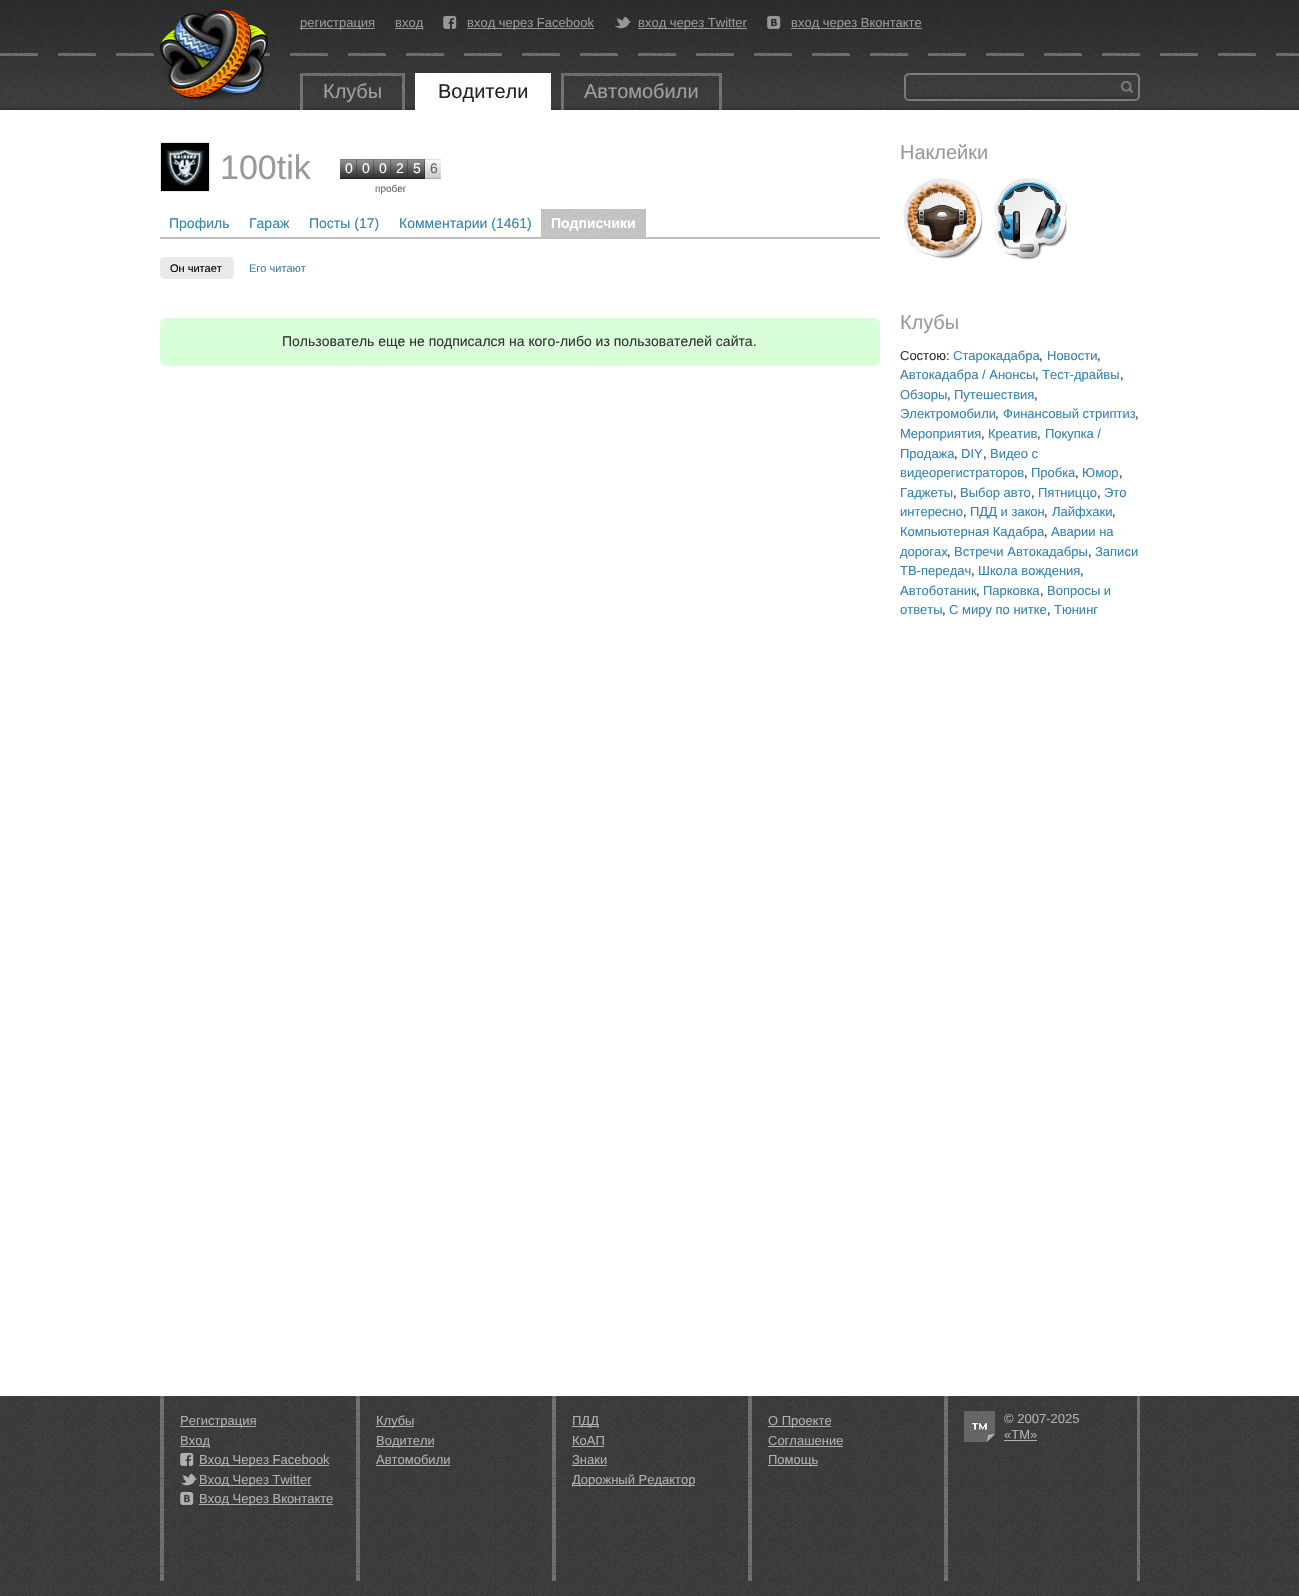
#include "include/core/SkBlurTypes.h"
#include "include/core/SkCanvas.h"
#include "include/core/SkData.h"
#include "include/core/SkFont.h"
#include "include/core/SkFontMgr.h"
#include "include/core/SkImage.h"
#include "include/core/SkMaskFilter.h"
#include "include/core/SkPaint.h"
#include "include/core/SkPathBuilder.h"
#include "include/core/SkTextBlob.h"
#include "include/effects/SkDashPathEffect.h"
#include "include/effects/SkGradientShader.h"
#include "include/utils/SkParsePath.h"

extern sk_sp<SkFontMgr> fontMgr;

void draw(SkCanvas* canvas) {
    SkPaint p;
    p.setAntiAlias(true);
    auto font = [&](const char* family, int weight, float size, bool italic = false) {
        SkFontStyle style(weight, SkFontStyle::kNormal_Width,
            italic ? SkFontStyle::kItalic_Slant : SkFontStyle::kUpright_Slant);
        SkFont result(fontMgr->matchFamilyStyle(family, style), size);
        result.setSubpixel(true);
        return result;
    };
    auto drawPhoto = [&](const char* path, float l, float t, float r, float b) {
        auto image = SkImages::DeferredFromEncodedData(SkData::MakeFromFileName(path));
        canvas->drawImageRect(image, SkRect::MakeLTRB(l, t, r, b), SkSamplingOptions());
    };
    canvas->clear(0xFFFFFFFF);
    drawPhoto("media/1.png", 0, 0, 1299, 110);
    drawPhoto("media/2.png", 160, 10, 268, 100);
    p.setColor(0xFF979797);
    canvas->drawRect(SkRect::MakeLTRB(300, 28, 375, 29), p);
    auto font1 = font("Liberation Sans", 400, 13);
    p.setColor(0xFF999999);
    canvas->drawString("регистрация", 300, 27, font1, p);
    p.setColor(0xFF979797);
    canvas->drawRect(SkRect::MakeLTRB(395, 28, 423, 29), p);
    p.setColor(0xFF999999);
    canvas->drawString("вход", 395, 27, font1, p);
    drawPhoto("media/3.png", 443, 15, 457, 29);
    p.setColor(0xFF979797);
    canvas->drawRect(SkRect::MakeLTRB(467, 28, 594, 29), p);
    p.setColor(0xFF999999);
    canvas->drawString("вход через Facebook", 467, 27, font1, p);
    drawPhoto("media/4.png", 614, 16, 631, 29);
    p.setColor(0xFF979797);
    canvas->drawRect(SkRect::MakeLTRB(638, 28, 747, 29), p);
    p.setColor(0xFF999999);
    canvas->drawString("вход через Twitter", 638, 27, font1, p);
    drawPhoto("media/5.png", 767, 15, 781, 29);
    p.setColor(0xFF979797);
    canvas->drawRect(SkRect::MakeLTRB(791, 28, 922, 29), p);
    p.setColor(0xFF999999);
    canvas->drawString("вход через Вконтакте", 791, 27, font1, p);
    drawPhoto("media/6.png", 300, 73, 405, 110);
    drawPhoto("media/7.png", 303, 76, 402, 110);
    auto font2 = font("Liberation Sans", 400, 20);
    p.setColor(0xFFA0A0A0);
    canvas->drawString("Клубы", 323, 98, font2, p);
    p.setColor(0xFFFFFFFF);
    canvas->drawRect(SkRect::MakeLTRB(415, 73, 551, 110), p);
    p.setColor(0xFF232323);
    canvas->drawString("Водители", 438, 98, font2, p);
    drawPhoto("media/8.png", 561, 73, 722, 110);
    drawPhoto("media/9.png", 564, 76, 719, 110);
    p.setColor(0xFFA0A0A0);
    canvas->drawString("Автомобили", 584, 98, font2, p);
    drawPhoto("media/10.png", 904, 73, 1140, 99);
    p.setStyle(SkPaint::kStroke_Style);
    p.setStrokeWidth(2);
    p.setColor(0xFF7A7B7B);
    canvas->drawRoundRect(SkRect::MakeLTRB(905, 74, 1139, 100), 4, 4, p);
    drawPhoto("media/11.png", 1121, 81, 1133, 93);
    p.setStrokeWidth(1);
    p.setColor(0xFFE6E6E6);
    canvas->drawRect(SkRect::MakeLTRB(160.5f, 142.5f, 209.5f, 191.5f), p);
    drawPhoto("media/12.png", 161, 143, 209, 191);
    auto font3 = font("Liberation Sans", 400, 34);
    p.setStyle(SkPaint::kFill_Style);
    p.setColor(0xFF999999);
    canvas->drawString("100tik", 220, 179, font3, p);
    drawPhoto("media/13.png", 340, 159, 357, 179);
    auto font4 = font("Liberation Sans", 400, 14);
    p.setColor(0xFFFFFFFF);
    canvas->drawString("0", 345, 173, font4, p);
    drawPhoto("media/13.png", 357, 159, 374, 179);
    canvas->drawString("0", 362, 173, font4, p);
    drawPhoto("media/13.png", 374, 159, 391, 179);
    canvas->drawString("0", 379, 173, font4, p);
    drawPhoto("media/13.png", 391, 159, 408, 179);
    canvas->drawString("2", 396, 173, font4, p);
    drawPhoto("media/13.png", 408, 159, 425, 179);
    canvas->drawString("5", 413, 173, font4, p);
    drawPhoto("media/14.png", 425, 159, 441, 179);
    p.setColor(0xFF666666);
    canvas->drawString("6", 430, 173, font4, p);
    auto font5 = font("Liberation Sans", 400, 10);
    canvas->drawString("пробег", 375, 192, font5, p);
    p.setColor(0xFFBFBFBF);
    canvas->drawRect(SkRect::MakeLTRB(160, 237, 880, 239), p);
    p.setColor(0xFF3582AF);
    {
        const struct { const char* s; float x, y; } items[] = {
            {"Профиль", 169, 228},
            {"Гараж", 249, 228},
            {"Посты (17)", 309, 228},
            {"Комментарии (1461)", 399, 228},
        };
        for (auto [s, x, y] : items) {
            canvas->drawString(s, x, y, font4, p);
        }
    }
    drawPhoto("media/15.png", 541, 209, 646, 237);
    auto font6 = font("Liberation Sans", 700, 14);
    p.setColor(0xFFFFFFFF);
    canvas->drawString("Подписчики", 551, 228, font6, p);
    p.setColor(0xFFE8E9EB);
    canvas->drawRoundRect(SkRect::MakeLTRB(160, 257, 234, 279), 5, 5, p);
    auto font7 = font("Liberation Sans", 400, 11);
    p.setColor(0xFF000000);
    canvas->drawString("Он читает", 170, 272, font7, p);
    p.setColor(0xFF3582AF);
    canvas->drawString("Его читают", 249, 272, font7, p);
    p.setColor(0xFFD9FFD9);
    canvas->drawRoundRect(SkRect::MakeLTRB(160, 318, 880, 366), 6, 6, p);
    p.setColor(0xFF333333);
    canvas->drawString("Пользователь еще не подписался на кого-либо из пользователей сайта.", 282, 346, font4, p);
    p.setColor(0xFF999999);
    canvas->drawString("Наклейки", 900, 159, font2, p);
    drawPhoto("media/16.png", 903, 178, 983, 259);
    drawPhoto("media/17.png", 994, 178, 1067, 260);
    canvas->drawString("Клубы", 900, 329, font2, p);
    p.setColor(0xFF333333);
    canvas->drawString("Состою:", 900, 360, font1, p);
    p.setColor(0xFF3582AF);
    canvas->drawString("Старокадабра", 953, 360, font1, p);
    p.setColor(0xFF333333);
    canvas->drawString(",", 1039, 360, font1, p);
    p.setColor(0xFF3582AF);
    canvas->drawString("Новости", 1047, 360, font1, p);
    p.setColor(0xFF333333);
    canvas->drawString(",", 1097, 360, font1, p);
    p.setColor(0xFF3582AF);
    canvas->drawString("Автокадабра / Анонсы", 900, 379, font1, p);
    p.setColor(0xFF333333);
    canvas->drawString(",", 1035, 379, font1, p);
    p.setColor(0xFF3582AF);
    canvas->drawString("Тест-драйвы", 1042, 379, font1, p);
    p.setColor(0xFF333333);
    canvas->drawString(",", 1120, 379, font1, p);
    p.setColor(0xFF3582AF);
    canvas->drawString("Обзоры", 900, 399, font1, p);
    p.setColor(0xFF333333);
    canvas->drawString(",", 947, 399, font1, p);
    p.setColor(0xFF3582AF);
    canvas->drawString("Путешествия", 954, 399, font1, p);
    p.setColor(0xFF333333);
    canvas->drawString(",", 1034, 399, font1, p);
    p.setColor(0xFF3582AF);
    canvas->drawString("Электромобили", 900, 418, font1, p);
    p.setColor(0xFF333333);
    canvas->drawString(",", 995, 418, font1, p);
    p.setColor(0xFF3582AF);
    canvas->drawString("Финансовый стриптиз", 1003, 418, font1, p);
    p.setColor(0xFF333333);
    canvas->drawString(",", 1135, 418, font1, p);
    p.setColor(0xFF3582AF);
    canvas->drawString("Мероприятия", 900, 438, font1, p);
    p.setColor(0xFF333333);
    canvas->drawString(",", 981, 438, font1, p);
    p.setColor(0xFF3582AF);
    canvas->drawString("Креатив", 988, 438, font1, p);
    p.setColor(0xFF333333);
    canvas->drawString(",", 1037, 438, font1, p);
    p.setColor(0xFF3582AF);
    canvas->drawString("Покупка /", 1045, 438, font1, p);
    canvas->drawString("Продажа", 900, 458, font1, p);
    p.setColor(0xFF333333);
    canvas->drawString(",", 954, 458, font1, p);
    p.setColor(0xFF3582AF);
    canvas->drawString("DIY", 961, 458, font1, p);
    p.setColor(0xFF333333);
    canvas->drawString(",", 983, 458, font1, p);
    p.setColor(0xFF3582AF);
    canvas->drawString("Видео с", 990, 458, font1, p);
    canvas->drawString("видеорегистраторов", 900, 477, font1, p);
    p.setColor(0xFF333333);
    canvas->drawString(",", 1024, 477, font1, p);
    p.setColor(0xFF3582AF);
    canvas->drawString("Пробка", 1031, 477, font1, p);
    p.setColor(0xFF333333);
    canvas->drawString(",", 1075, 477, font1, p);
    p.setColor(0xFF3582AF);
    canvas->drawString("Юмор", 1082, 477, font1, p);
    p.setColor(0xFF333333);
    canvas->drawString(",", 1119, 477, font1, p);
    p.setColor(0xFF3582AF);
    canvas->drawString("Гаджеты", 900, 497, font1, p);
    p.setColor(0xFF333333);
    canvas->drawString(",", 953, 497, font1, p);
    p.setColor(0xFF3582AF);
    canvas->drawString("Выбор авто", 960, 497, font1, p);
    p.setColor(0xFF333333);
    canvas->drawString(",", 1031, 497, font1, p);
    p.setColor(0xFF3582AF);
    canvas->drawString("Пятниццо", 1038, 497, font1, p);
    p.setColor(0xFF333333);
    canvas->drawString(",", 1097, 497, font1, p);
    p.setColor(0xFF3582AF);
    canvas->drawString("Это", 1104, 497, font1, p);
    canvas->drawString("интересно", 900, 516, font1, p);
    p.setColor(0xFF333333);
    canvas->drawString(",", 963, 516, font1, p);
    p.setColor(0xFF3582AF);
    canvas->drawString("ПДД и закон", 970, 516, font1, p);
    p.setColor(0xFF333333);
    canvas->drawString(",", 1044, 516, font1, p);
    p.setColor(0xFF3582AF);
    canvas->drawString("Лайфхаки", 1052, 516, font1, p);
    p.setColor(0xFF333333);
    canvas->drawString(",", 1112, 516, font1, p);
    p.setColor(0xFF3582AF);
    canvas->drawString("Компьютерная Кадабра", 900, 536, font1, p);
    p.setColor(0xFF333333);
    canvas->drawString(",", 1044, 536, font1, p);
    p.setColor(0xFF3582AF);
    canvas->drawString("Аварии на", 1051, 536, font1, p);
    canvas->drawString("дорогах", 900, 556, font1, p);
    p.setColor(0xFF333333);
    canvas->drawString(",", 947, 556, font1, p);
    p.setColor(0xFF3582AF);
    canvas->drawString("Встречи Автокадабры", 954, 556, font1, p);
    p.setColor(0xFF333333);
    canvas->drawString(",", 1088, 556, font1, p);
    p.setColor(0xFF3582AF);
    canvas->drawString("Записи", 1095, 556, font1, p);
    canvas->drawString("ТВ-передач", 900, 575, font1, p);
    p.setColor(0xFF333333);
    canvas->drawString(",", 971, 575, font1, p);
    p.setColor(0xFF3582AF);
    canvas->drawString("Школа вождения", 978, 575, font1, p);
    p.setColor(0xFF333333);
    canvas->drawString(",", 1080, 575, font1, p);
    p.setColor(0xFF3582AF);
    canvas->drawString("Автоботаник", 900, 595, font1, p);
    p.setColor(0xFF333333);
    canvas->drawString(",", 976, 595, font1, p);
    p.setColor(0xFF3582AF);
    canvas->drawString("Парковка", 983, 595, font1, p);
    p.setColor(0xFF333333);
    canvas->drawString(",", 1040, 595, font1, p);
    p.setColor(0xFF3582AF);
    canvas->drawString("Вопросы и", 1047, 595, font1, p);
    canvas->drawString("ответы", 900, 614, font1, p);
    p.setColor(0xFF333333);
    canvas->drawString(",", 942, 614, font1, p);
    p.setColor(0xFF3582AF);
    canvas->drawString("С миру по нитке", 949, 614, font1, p);
    p.setColor(0xFF333333);
    canvas->drawString(",", 1047, 614, font1, p);
    p.setColor(0xFF3582AF);
    canvas->drawString("Тюнинг", 1054, 614, font1, p);
    drawPhoto("media/18.png", 0, 1396, 1299, 1596);
    drawPhoto("media/19.png", 1137, 1396, 1140, 1581);
    drawPhoto("media/20.png", 160, 1396, 164, 1581);
    p.setColor(0xFFB0B0B0);
    canvas->drawRect(SkRect::MakeLTRB(180, 1426, 256, 1427), p);
    canvas->drawString("Регистрация", 180, 1425, font1, p);
    canvas->drawRect(SkRect::MakeLTRB(180, 1446, 210, 1447), p);
    canvas->drawString("Вход", 180, 1445, font1, p);
    drawPhoto("media/21.png", 180, 1452, 194, 1466);
    canvas->drawRect(SkRect::MakeLTRB(199, 1465, 329, 1466), p);
    canvas->drawString("Вход Через Facebook", 199, 1464, font1, p);
    drawPhoto("media/22.png", 180, 1473, 197, 1486);
    canvas->drawRect(SkRect::MakeLTRB(199, 1485, 311, 1486), p);
    canvas->drawString("Вход Через Twitter", 199, 1484, font1, p);
    drawPhoto("media/23.png", 180, 1491, 194, 1505);
    canvas->drawRect(SkRect::MakeLTRB(199, 1504, 333, 1505), p);
    canvas->drawString("Вход Через Вконтакте", 199, 1503, font1, p);
    drawPhoto("media/20.png", 356, 1396, 360, 1581);
    canvas->drawRect(SkRect::MakeLTRB(376, 1426, 414, 1427), p);
    canvas->drawString("Клубы", 376, 1425, font1, p);
    canvas->drawRect(SkRect::MakeLTRB(376, 1446, 434, 1447), p);
    canvas->drawString("Водители", 376, 1445, font1, p);
    canvas->drawString("Автомобили", 376, 1464, font1, p);
    canvas->drawRect(SkRect::MakeLTRB(376, 1465, 450, 1466), p);
    drawPhoto("media/20.png", 552, 1396, 556, 1581);
    canvas->drawRect(SkRect::MakeLTRB(572, 1426, 598, 1427), p);
    canvas->drawString("ПДД", 572, 1425, font1, p);
    canvas->drawString("КоАП", 572, 1445, font1, p);
    canvas->drawRect(SkRect::MakeLTRB(572, 1446, 604, 1447), p);
    canvas->drawString("Знаки", 572, 1464, font1, p);
    canvas->drawRect(SkRect::MakeLTRB(572, 1465, 607, 1466), p);
    canvas->drawRect(SkRect::MakeLTRB(572, 1485, 695, 1486), p);
    canvas->drawString("Дорожный Редактор", 572, 1484, font1, p);
    drawPhoto("media/20.png", 748, 1396, 752, 1581);
    canvas->drawRect(SkRect::MakeLTRB(768, 1426, 831, 1427), p);
    canvas->drawString("О Проекте", 768, 1425, font1, p);
    canvas->drawString("Соглашение", 768, 1445, font1, p);
    canvas->drawRect(SkRect::MakeLTRB(768, 1446, 843, 1447), p);
    canvas->drawRect(SkRect::MakeLTRB(768, 1465, 818, 1466), p);
    canvas->drawString("Помощь", 768, 1464, font1, p);
    drawPhoto("media/20.png", 944, 1396, 948, 1581);
    drawPhoto("media/24.png", 964, 1411, 995, 1442);
    canvas->drawString("© 2007-2025", 1004, 1423, font1, p);
    canvas->drawString("«ТМ»", 1004, 1439, font1, p);
    canvas->drawRect(SkRect::MakeLTRB(1004, 1440, 1037, 1441), p);
}
